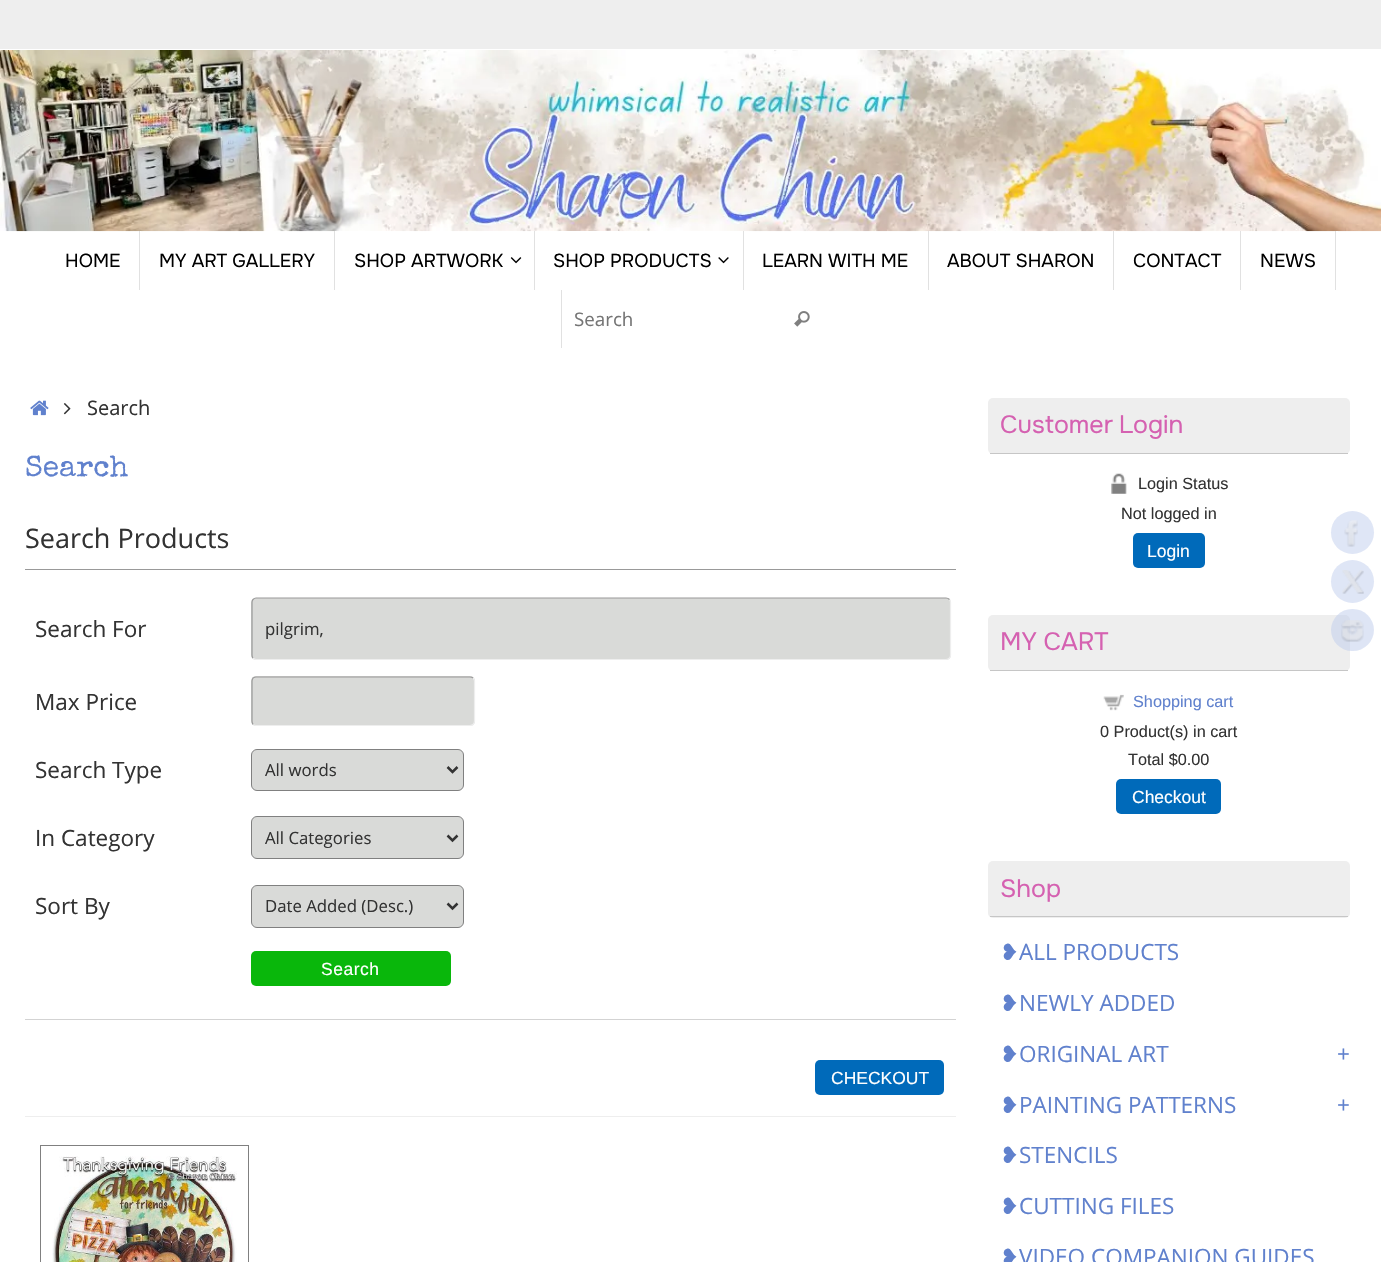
#include "include/core/SkBlurTypes.h"
#include "include/core/SkCanvas.h"
#include "include/core/SkData.h"
#include "include/core/SkFont.h"
#include "include/core/SkFontMgr.h"
#include "include/core/SkImage.h"
#include "include/core/SkMaskFilter.h"
#include "include/core/SkPaint.h"
#include "include/core/SkPathBuilder.h"
#include "include/core/SkTextBlob.h"
#include "include/effects/SkDashPathEffect.h"
#include "include/effects/SkGradientShader.h"
#include "include/utils/SkParsePath.h"

extern sk_sp<SkFontMgr> fontMgr;

void draw(SkCanvas* canvas) {
    SkPaint p;
    p.setAntiAlias(true);
    auto font = [&](const char* family, int weight, float size, bool italic = false) {
        SkFontStyle style(weight, SkFontStyle::kNormal_Width,
            italic ? SkFontStyle::kItalic_Slant : SkFontStyle::kUpright_Slant);
        SkFont result(fontMgr->matchFamilyStyle(family, style), size);
        result.setSubpixel(true);
        return result;
    };
    auto drawTracked = [&](const char* s, float x, float y, const SkFont& font, const SkPaint& ink, float letter, float word) {
        std::vector<SkGlyphID> glyphs(font.countText(s, strlen(s), SkTextEncoding::kUTF8));
        std::vector<float> xs(glyphs.size());
        font.textToGlyphs(s, strlen(s), SkTextEncoding::kUTF8, glyphs);
        font.getXPos(glyphs, xs, x);
        float extra = 0;
        for (size_t i = 0; i < glyphs.size(); i++) {
            xs[i] += extra;
            extra += letter + word * (glyphs[i] == font.unicharToGlyph(' '));
        }
        canvas->drawTextBlob(SkTextBlob::MakeFromPosHGlyphs(glyphs, xs, y, font), 0, 0, ink);
    };
    auto drawPhoto = [&](const char* path, float l, float t, float r, float b) {
        auto image = SkImages::DeferredFromEncodedData(SkData::MakeFromFileName(path));
        canvas->drawImageRect(image, SkRect::MakeLTRB(l, t, r, b), SkSamplingOptions());
    };
    canvas->clear(0xFFFFFFFF);
    p.setColor(0xFFEEEEEE);
    canvas->drawRect(SkRect::MakeLTRB(0, 0, 1381, 49), p);
    drawPhoto("media/1.png", 0, 50, 1381, 232);
    p.setColor(0xFFFFFFFF);
    canvas->drawPath(SkPathBuilder().moveTo(48, 231).lineTo(140, 231).lineTo(140, 290).lineTo(141, 290).lineTo(141, 231).close().detach(), p);
    p.setColor(0xFFE1E1E1);
    canvas->drawRect(SkRect::MakeLTRB(139, 231, 140, 290), p);
    auto font1 = font("Onest", 400, 18.75f);
    p.setColor(0xFF000000);
    canvas->drawString("HOME", 65, 267, font1, p);
    p.setColor(0xFFFFFFFF);
    canvas->drawPath(SkPathBuilder().moveTo(141, 231).lineTo(335, 231).lineTo(335, 290).lineTo(336, 290).lineTo(336, 231).close().detach(), p);
    p.setColor(0xFFE1E1E1);
    canvas->drawRect(SkRect::MakeLTRB(334, 231, 335, 290), p);
    p.setColor(0xFF000000);
    canvas->drawString("MY ART GALLERY", 159, 267, font1, p);
    p.setColor(0xFFE1E1E1);
    canvas->drawRect(SkRect::MakeLTRB(534, 231, 535, 290), p);
    p.setColor(0xFF000000);
    canvas->drawString("SHOP ARTWORK", 354, 267, font1, p);
    drawPhoto("media/2.png", 510, 257, 522, 264);
    p.setColor(0xFFFFFFFF);
    canvas->drawRect(SkRect::MakeLTRB(559, 231, 619, 232), p);
    p.setColor(0xFFE1E1E1);
    canvas->drawRect(SkRect::MakeLTRB(743, 231, 744, 290), p);
    p.setColor(0xFF000000);
    canvas->drawString("SHOP PRODUCTS", 553, 267, font1, p);
    drawPhoto("media/3.png", 718, 257, 729, 264);
    p.setColor(0xFFFFFFFF);
    canvas->drawPath(SkPathBuilder().moveTo(745, 231).lineTo(929, 231).lineTo(929, 290).lineTo(930, 290).lineTo(930, 231).close().detach(), p);
    p.setColor(0xFFE1E1E1);
    canvas->drawRect(SkRect::MakeLTRB(928, 231, 929, 290), p);
    p.setColor(0xFF000000);
    canvas->drawString("LEARN WITH ME", 762, 267, font1, p);
    p.setColor(0xFFFFFFFF);
    canvas->drawPath(SkPathBuilder().moveTo(930, 231).lineTo(1114, 231).lineTo(1114, 290).lineTo(1115, 290).lineTo(1115, 231).close().detach(), p);
    p.setColor(0xFFE1E1E1);
    canvas->drawRect(SkRect::MakeLTRB(1113, 231, 1114, 290), p);
    p.setColor(0xFF000000);
    canvas->drawString("ABOUT SHARON", 947, 267, font1, p);
    p.setColor(0xFFE1E1E1);
    canvas->drawRect(SkRect::MakeLTRB(1240, 231, 1241, 290), p);
    p.setColor(0xFF000000);
    canvas->drawString("CONTACT", 1133, 267, font1, p);
    p.setColor(0xFFFFFFFF);
    canvas->drawPath(SkPathBuilder().moveTo(1243, 231).lineTo(1336, 231).lineTo(1336, 290).lineTo(1338, 290).lineTo(1338, 231).close().detach(), p);
    p.setColor(0xFFE1E1E1);
    canvas->drawRect(SkRect::MakeLTRB(1335, 231, 1336, 290), p);
    p.setColor(0xFF000000);
    canvas->drawString("NEWS", 1260, 267, font1, p);
    p.setColor(0xFFE1E1E1);
    canvas->drawRect(SkRect::MakeLTRB(561, 290, 562, 348), p);
    auto font2 = font("Open Sans", 400, 18.75f);
    p.setColor(0xFF757575);
    canvas->drawString("Search", 574, 326, font2, p);
    drawPhoto("media/4.png", 794, 311, 810, 327);
    drawPhoto("media/5.png", 30, 400, 49, 416);
    drawPhoto("media/6.png", 63, 403, 71, 415);
    auto font3 = font("Open Sans", 400, 20);
    p.setColor(0xFF333333);
    canvas->drawString("Search", 87, 415, font3, p);
    auto font4 = font("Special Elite", 400, 30);
    p.setColor(0xFF6081CD);
    canvas->drawString("Search", 25, 476, font4, p);
    p.setColor(0xFF999999);
    canvas->drawRect(SkRect::MakeLTRB(25, 569, 956, 570), p);
    auto font5 = font("Open Sans", 400, 27);
    p.setColor(0xFF333333);
    canvas->drawString("Search Products", 25, 548, font5, p);
    auto font6 = font("Open Sans", 400, 22.5f);
    canvas->drawString("Search For", 35, 637, font6, p);
    p.setColor(0xFFD9DAD8);
    canvas->drawRoundRect(SkRect::MakeLTRB(251, 598, 951, 660), 5, 5, p);
    p.setStyle(SkPaint::kStroke_Style);
    p.setStrokeWidth(1.2f);
    p.setColor(0xFFEEEEEE);
    canvas->drawPath(SkPathBuilder().moveTo(949.5f, 599.5f).cubicTo(950, 600, 950.5f, 601.5f, 950.5f, 602.5f).lineTo(950.5f, 655).cubicTo(950.5f, 656, 950, 657.5f, 949.5f, 658).cubicTo(948.5f, 659, 947.5f, 659.5f, 946, 659.5f).lineTo(256, 659.5f).cubicTo(255, 659.5f, 254, 659, 253, 658).detach(), p);
    p.setColor(0xFF999999);
    canvas->drawPath(SkPathBuilder().moveTo(253, 658).cubicTo(252.5f, 657.5f, 252, 656, 252, 655).lineTo(252, 602.5f).cubicTo(252, 601.5f, 252.5f, 600, 253, 599.5f).cubicTo(254, 598.5f, 255, 598, 256, 598).lineTo(946, 598).cubicTo(947.5f, 598, 948.5f, 598.5f, 949.5f, 599.5f).detach(), p);
    auto font7 = font("Open Sans", 400, 16.75f);
    p.setStyle(SkPaint::kFill_Style);
    p.setColor(0xFF333333);
    canvas->drawString("pilgrim,", 265, 635, font7, p);
    canvas->drawString("Max Price", 35, 710, font6, p);
    p.setColor(0xFFD9DAD8);
    canvas->drawRoundRect(SkRect::MakeLTRB(251, 676, 475, 726), 5, 5, p);
    p.setStyle(SkPaint::kStroke_Style);
    p.setColor(0xFFEEEEEE);
    canvas->drawPath(SkPathBuilder().moveTo(473, 678).cubicTo(474, 679, 474.5f, 680, 474.5f, 681).lineTo(474.5f, 721).cubicTo(474.5f, 722.5f, 474, 723.5f, 473, 724.5f).cubicTo(472.5f, 725, 471, 725.5f, 470, 725.5f).lineTo(256, 725.5f).cubicTo(255, 725.5f, 254, 725, 253, 724.5f).detach(), p);
    p.setColor(0xFF999999);
    canvas->drawPath(SkPathBuilder().moveTo(253, 724.5f).cubicTo(252.5f, 723.5f, 252, 722.5f, 252, 721).lineTo(252, 681).cubicTo(252, 680, 252.5f, 679, 253, 678).cubicTo(254, 677.5f, 255, 677, 256, 677).lineTo(470, 677).cubicTo(471, 677, 472.5f, 677.5f, 473, 678).detach(), p);
    p.setStyle(SkPaint::kFill_Style);
    p.setColor(0xFF333333);
    canvas->drawString("Search Type", 35, 778, font6, p);
    p.setColor(0xFFD9DAD8);
    canvas->drawRoundRect(SkRect::MakeLTRB(251.5f, 749.5f, 463.5f, 790.5f), 5.5f, 5.5f, p);
    p.setStyle(SkPaint::kStroke_Style);
    p.setStrokeWidth(1);
    p.setColor(0xFF808080);
    canvas->drawRoundRect(SkRect::MakeLTRB(251.5f, 749.5f, 463.5f, 790.5f), 5.5f, 5.5f, p);
    p.setStrokeWidth(2.5f);
    p.setColor(0xFF333333);
    canvas->drawPath(SkPathBuilder().moveTo(447.5f, 767).lineTo(452.5f, 772).lineTo(457.5f, 767).detach(), p);
    p.setStyle(SkPaint::kFill_Style);
    canvas->drawString("All words", 265, 776, font7, p);
    canvas->drawString("In Category", 35, 846, font6, p);
    p.setColor(0xFFD9DAD8);
    canvas->drawRoundRect(SkRect::MakeLTRB(251.5f, 816.5f, 463.5f, 858.5f), 5.5f, 5.5f, p);
    p.setStyle(SkPaint::kStroke_Style);
    p.setStrokeWidth(1);
    p.setColor(0xFF808080);
    canvas->drawRoundRect(SkRect::MakeLTRB(251.5f, 816.5f, 463.5f, 858.5f), 5.5f, 5.5f, p);
    p.setStrokeWidth(2.5f);
    p.setColor(0xFF333333);
    canvas->drawPath(SkPathBuilder().moveTo(447.5f, 835.5f).lineTo(452.5f, 840.5f).lineTo(457.5f, 835.5f).detach(), p);
    p.setStyle(SkPaint::kFill_Style);
    canvas->drawString("All Categories", 265, 844, font7, p);
    canvas->drawString("Sort By", 35, 914, font6, p);
    p.setColor(0xFFD9DAD8);
    canvas->drawRoundRect(SkRect::MakeLTRB(251.5f, 885.5f, 463.5f, 927.5f), 5.5f, 5.5f, p);
    p.setStyle(SkPaint::kStroke_Style);
    p.setStrokeWidth(1);
    p.setColor(0xFF808080);
    canvas->drawRoundRect(SkRect::MakeLTRB(251.5f, 885.5f, 463.5f, 927.5f), 5.5f, 5.5f, p);
    p.setStrokeWidth(2.5f);
    p.setColor(0xFF333333);
    canvas->drawPath(SkPathBuilder().moveTo(447.5f, 903.5f).lineTo(452.5f, 908.5f).lineTo(457.5f, 903.5f).detach(), p);
    p.setStyle(SkPaint::kFill_Style);
    canvas->drawString("Date Added (Desc.)", 265, 912, font7, p);
    p.setColor(0xFF09B70B);
    canvas->drawRoundRect(SkRect::MakeLTRB(251, 951, 451, 986), 5, 5, p);
    auto font8 = font("Liberation Sans", 400, 17.5f);
    p.setColor(0xFFFFFFFF);
    drawTracked("Search", 321, 975, font8, p, 0.5f, 0);
    p.setColor(0xFFD3D3D3);
    canvas->drawRect(SkRect::MakeLTRB(25, 1019, 956, 1020), p);
    p.setColor(0xFFEEEEEE);
    canvas->drawRect(SkRect::MakeLTRB(25, 1116, 956, 1117), p);
    p.setColor(0xFF006ABA);
    canvas->drawRoundRect(SkRect::MakeLTRB(815, 1060, 944, 1095), 5, 5, p);
    p.setColor(0xFFFFFFFF);
    canvas->drawString("CHECKOUT", 831, 1084, font8, p);
    p.setStyle(SkPaint::kStroke_Style);
    p.setStrokeWidth(1);
    p.setColor(0xFF808080);
    canvas->drawRect(SkRect::MakeLTRB(40.5f, 1145.5f, 248.5f, 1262.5f), p);
    drawPhoto("media/7.png", 52, 1156, 237, 1262);
    p.setStyle(SkPaint::kFill_Style);
    p.setColor(0xFFEEEEEE);
    canvas->drawRoundRect(SkRect::MakeLTRB(988, 398, 1350, 454), 5, 5, p);
    p.setColor(0xFFC6C6C6);
    canvas->drawRect(SkRect::MakeLTRB(990, 453, 1348, 454), p);
    auto font9 = font("Onest", 400, 25);
    p.setColor(0xFFD561B1);
    drawTracked("Customer Login", 1000, 433, font9, p, 0, -1);
    drawPhoto("media/8.png", 1111, 473, 1127, 494);
    auto font10 = font("Liberation Sans", 400, 16.25f);
    p.setColor(0xFF333333);
    canvas->drawString("Login Status", 1138, 489, font10, p);
    canvas->drawString("Not logged in", 1121, 519, font10, p);
    p.setColor(0xFF006ABA);
    canvas->drawRoundRect(SkRect::MakeLTRB(1133, 533, 1205, 568), 5, 5, p);
    p.setColor(0xFFFFFFFF);
    canvas->drawString("Login", 1147, 557, font8, p);
    p.setColor(0xFFEEEEEE);
    canvas->drawRoundRect(SkRect::MakeLTRB(988, 615, 1350, 671), 5, 5, p);
    p.setColor(0xFFC6C6C6);
    canvas->drawRect(SkRect::MakeLTRB(990, 670, 1348, 671), p);
    p.setColor(0xFFD561B1);
    canvas->drawString("MY CART", 1000, 650, font9, p);
    drawPhoto("media/9.png", 1103, 694, 1124, 711);
    p.setColor(0xFF6081CD);
    canvas->drawString("Shopping cart", 1133, 707, font10, p);
    p.setColor(0xFF333333);
    canvas->drawString("0 Product(s) in cart", 1100, 737, font10, p);
    canvas->drawString("Total $0.00", 1128, 765, font10, p);
    p.setColor(0xFF006ABA);
    canvas->drawRoundRect(SkRect::MakeLTRB(1116, 779, 1221, 814), 5, 5, p);
    p.setColor(0xFFFFFFFF);
    canvas->drawString("Checkout", 1132, 803, font8, p);
    p.setColor(0xFFEEEEEE);
    canvas->drawRoundRect(SkRect::MakeLTRB(988, 861, 1350, 918), 5, 5, p);
    p.setColor(0xFFC6C6C6);
    canvas->drawRect(SkRect::MakeLTRB(990, 916, 1348, 917), p);
    p.setColor(0xFFD561B1);
    canvas->drawString("Shop", 1000, 897, font9, p);
    auto font11 = font("DejaVu Sans", 400, 22.5f);
    p.setColor(0xFF6081CD);
    canvas->drawString("❥", 1000, 960, font11, p);
    canvas->drawString("ALL PRODUCTS", 1019, 960, font6, p);
    canvas->drawString("❥", 1000, 1011, font11, p);
    canvas->drawString("NEWLY ADDED", 1019, 1011, font6, p);
    canvas->drawString("❥", 1000, 1062, font11, p);
    canvas->drawString("ORIGINAL ART", 1019, 1062, font6, p);
    canvas->drawString("+", 1337, 1062, font6, p);
    canvas->drawString("❥", 1000, 1113, font11, p);
    canvas->drawString("PAINTING PATTERNS", 1019, 1113, font6, p);
    canvas->drawString("+", 1337, 1113, font6, p);
    canvas->drawString("❥", 1000, 1163, font11, p);
    canvas->drawString("STENCILS", 1019, 1163, font6, p);
    canvas->drawString("❥", 1000, 1214, font11, p);
    canvas->drawString("CUTTING FILES", 1019, 1214, font6, p);
    canvas->drawString("❥", 1000, 1265, font11, p);
    canvas->drawString("VIDEO COMPANION GUIDES", 1019, 1265, font6, p);
    p.setColor(0xFFDFE6F6);
    canvas->drawCircle(1352.5f, 532.5f, 21.5f, p);
    drawPhoto("media/10.png", 1344, 520, 1358, 547);
    canvas->drawCircle(1352.5f, 581.5f, 21.5f, p);
    drawPhoto("media/11.png", 1342, 570, 1364, 594);
    p.setColor(0x80BECCEC);
    canvas->drawRoundRect(SkRect::MakeLTRB(1331, 609, 1374, 651), 21, 21, p);
    drawPhoto("media/12.png", 1341, 620, 1364, 642);
}
